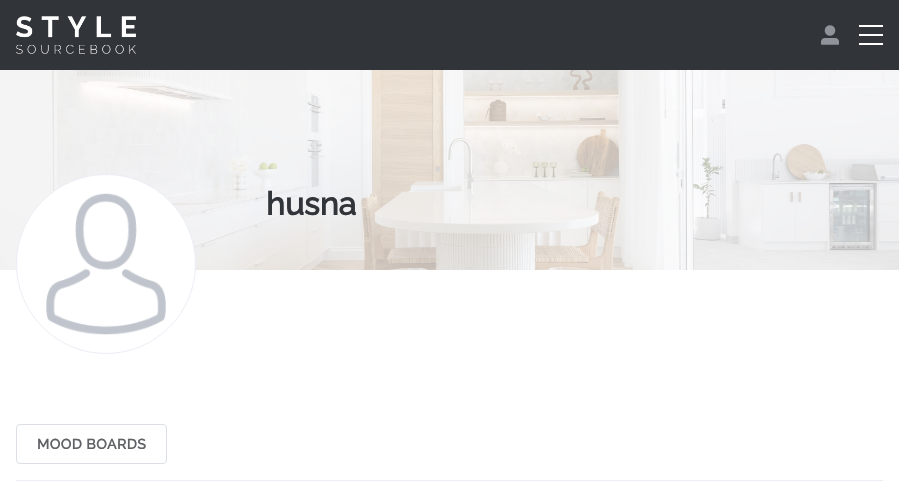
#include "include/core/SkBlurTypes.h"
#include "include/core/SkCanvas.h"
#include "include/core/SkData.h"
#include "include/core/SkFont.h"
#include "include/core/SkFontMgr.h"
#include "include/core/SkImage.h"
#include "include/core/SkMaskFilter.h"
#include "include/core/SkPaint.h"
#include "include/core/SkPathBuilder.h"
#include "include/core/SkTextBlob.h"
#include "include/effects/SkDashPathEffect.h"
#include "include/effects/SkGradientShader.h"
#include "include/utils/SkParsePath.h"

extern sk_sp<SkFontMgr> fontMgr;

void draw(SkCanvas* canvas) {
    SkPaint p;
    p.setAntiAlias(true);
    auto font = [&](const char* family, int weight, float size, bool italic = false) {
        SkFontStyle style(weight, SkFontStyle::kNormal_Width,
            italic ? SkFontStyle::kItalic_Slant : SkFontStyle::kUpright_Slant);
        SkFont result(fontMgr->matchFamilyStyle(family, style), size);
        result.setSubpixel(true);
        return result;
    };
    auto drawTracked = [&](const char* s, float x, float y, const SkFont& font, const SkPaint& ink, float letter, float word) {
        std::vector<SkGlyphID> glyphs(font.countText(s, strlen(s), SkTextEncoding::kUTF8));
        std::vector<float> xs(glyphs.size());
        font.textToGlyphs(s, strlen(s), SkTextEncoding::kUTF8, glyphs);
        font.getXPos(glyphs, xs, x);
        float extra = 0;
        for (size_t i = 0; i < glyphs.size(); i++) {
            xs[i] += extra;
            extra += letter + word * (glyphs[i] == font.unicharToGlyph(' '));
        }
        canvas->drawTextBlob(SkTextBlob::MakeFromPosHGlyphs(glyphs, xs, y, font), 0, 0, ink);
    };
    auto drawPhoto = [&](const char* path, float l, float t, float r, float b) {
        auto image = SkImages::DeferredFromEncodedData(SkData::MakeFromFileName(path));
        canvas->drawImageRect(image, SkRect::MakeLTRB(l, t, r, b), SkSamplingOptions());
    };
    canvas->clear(0xFFFFFFFF);
    p.setColor(0xFF31353A);
    canvas->drawRect(SkRect::MakeLTRB(0, 0, 899, 70), p);
    drawPhoto("media/1.png", 16, 16, 136, 54);
    drawPhoto("media/2.png", 821, 25, 839, 45);
    {
        const struct { float l, t, r, b; SkColor color; } items[] = {
            {859, 25, 883, 27, 0xFFFFFFFF},
            {859, 34, 883, 36, 0xFFFFFFFF},
            {859, 43, 883, 45, 0xFFFFFFFF},
        };
        for (auto [l, t, r, b, color] : items) {
            p.setColor(color);
            canvas->drawRect(SkRect::MakeLTRB(l, t, r, b), p);
        }
    }
    drawPhoto("media/3.png", 0, 70, 899, 270);
    canvas->drawCircle(106, 264, 89.5f, p);
    p.setStyle(SkPaint::kStroke_Style);
    p.setStrokeWidth(1);
    p.setColor(0xFFEBEEF5);
    canvas->drawCircle(106, 264, 89.5f, p);
    drawPhoto("media/4.png", 46, 193, 166, 335);
    auto font1 = font("Raleway", 700, 32);
    p.setStyle(SkPaint::kFill_Style);
    p.setColor(0xFF31353A);
    canvas->drawString("husna", 266, 215, font1, p);
    p.setColor(0xFFEBEEF5);
    canvas->drawRect(SkRect::MakeLTRB(16, 480, 883, 481), p);
    p.setStyle(SkPaint::kStroke_Style);
    p.setColor(0xFFDCDFE6);
    canvas->drawRoundRect(SkRect::MakeLTRB(16.5f, 424.5f, 166.5f, 463.5f), 3.5f, 3.5f, p);
    auto font2 = font("Raleway", 700, 14);
    p.setStyle(SkPaint::kFill_Style);
    p.setColor(0xFF606266);
    drawTracked("MOOD BOARDS", 37, 449, font2, p, 0.5f, 0);
}
